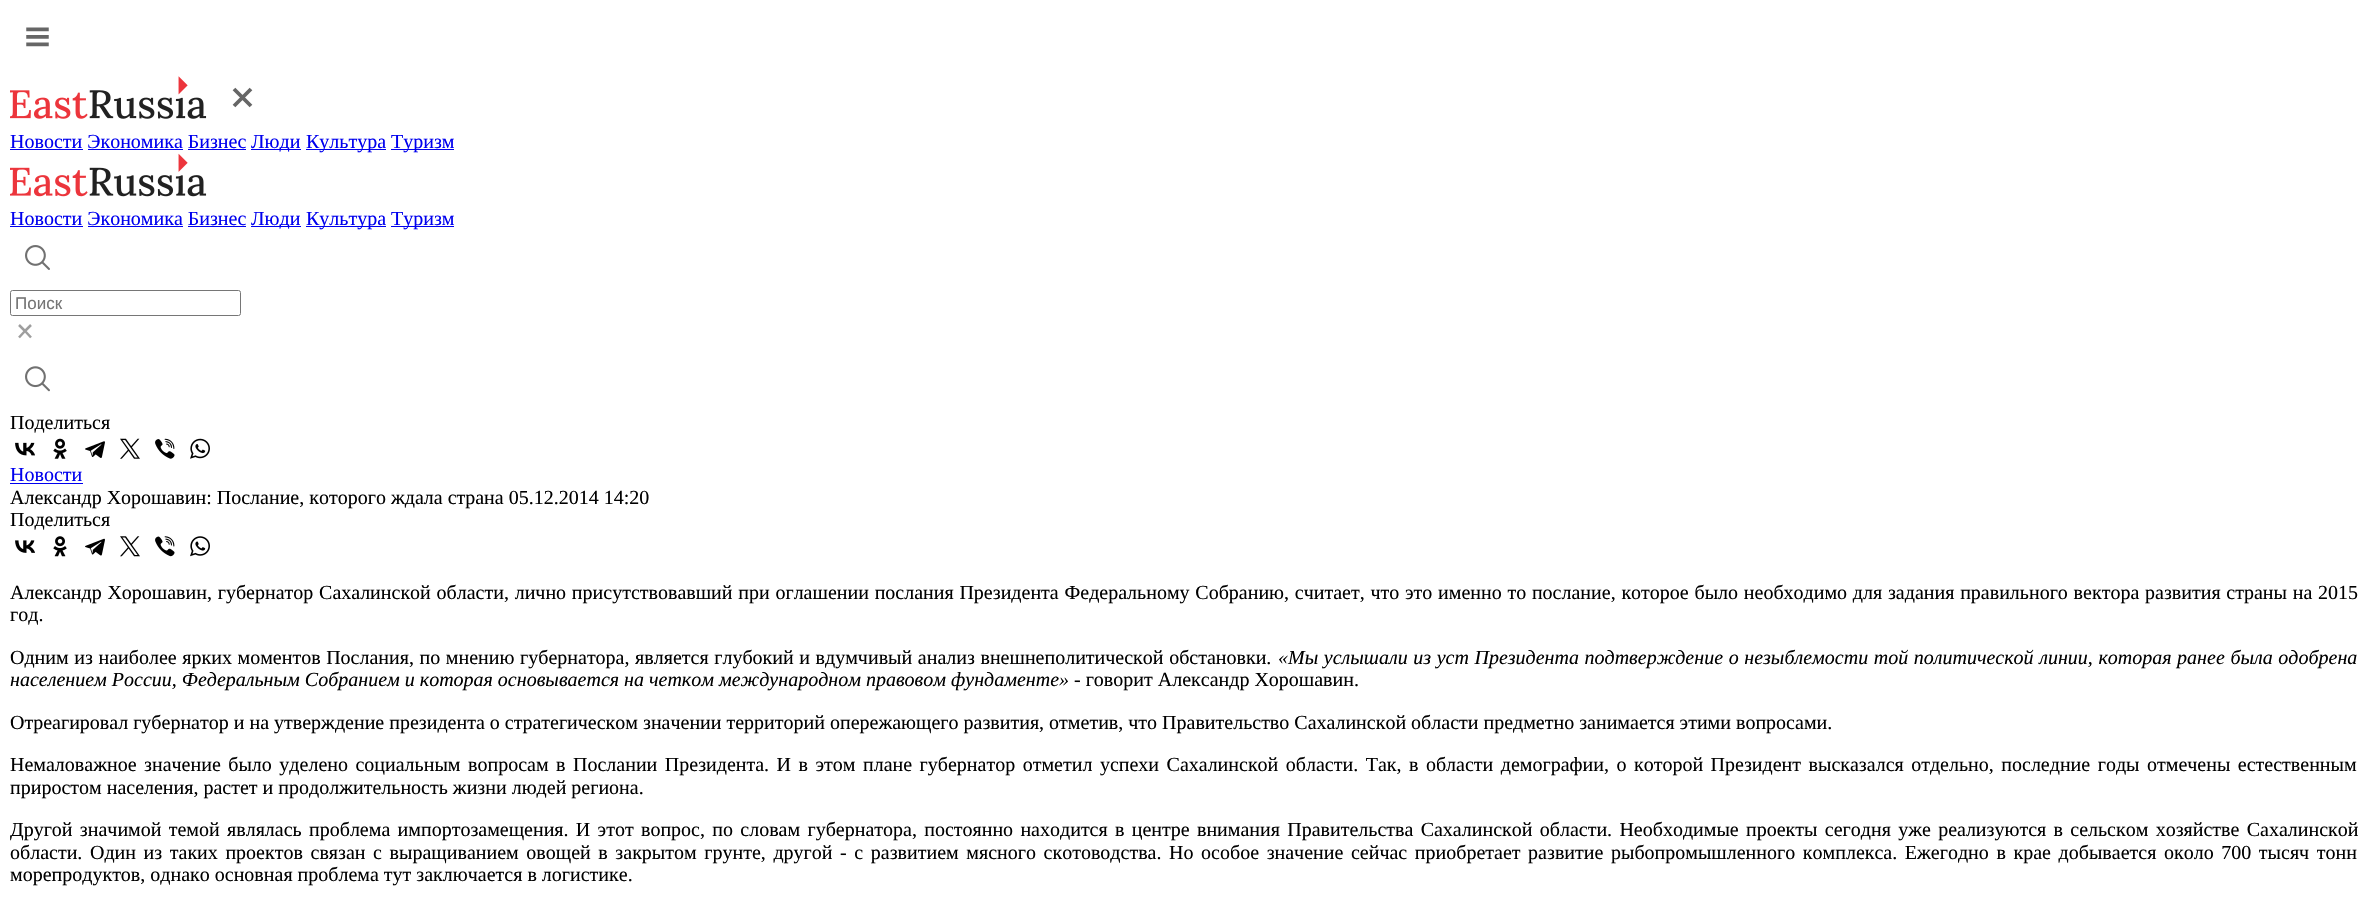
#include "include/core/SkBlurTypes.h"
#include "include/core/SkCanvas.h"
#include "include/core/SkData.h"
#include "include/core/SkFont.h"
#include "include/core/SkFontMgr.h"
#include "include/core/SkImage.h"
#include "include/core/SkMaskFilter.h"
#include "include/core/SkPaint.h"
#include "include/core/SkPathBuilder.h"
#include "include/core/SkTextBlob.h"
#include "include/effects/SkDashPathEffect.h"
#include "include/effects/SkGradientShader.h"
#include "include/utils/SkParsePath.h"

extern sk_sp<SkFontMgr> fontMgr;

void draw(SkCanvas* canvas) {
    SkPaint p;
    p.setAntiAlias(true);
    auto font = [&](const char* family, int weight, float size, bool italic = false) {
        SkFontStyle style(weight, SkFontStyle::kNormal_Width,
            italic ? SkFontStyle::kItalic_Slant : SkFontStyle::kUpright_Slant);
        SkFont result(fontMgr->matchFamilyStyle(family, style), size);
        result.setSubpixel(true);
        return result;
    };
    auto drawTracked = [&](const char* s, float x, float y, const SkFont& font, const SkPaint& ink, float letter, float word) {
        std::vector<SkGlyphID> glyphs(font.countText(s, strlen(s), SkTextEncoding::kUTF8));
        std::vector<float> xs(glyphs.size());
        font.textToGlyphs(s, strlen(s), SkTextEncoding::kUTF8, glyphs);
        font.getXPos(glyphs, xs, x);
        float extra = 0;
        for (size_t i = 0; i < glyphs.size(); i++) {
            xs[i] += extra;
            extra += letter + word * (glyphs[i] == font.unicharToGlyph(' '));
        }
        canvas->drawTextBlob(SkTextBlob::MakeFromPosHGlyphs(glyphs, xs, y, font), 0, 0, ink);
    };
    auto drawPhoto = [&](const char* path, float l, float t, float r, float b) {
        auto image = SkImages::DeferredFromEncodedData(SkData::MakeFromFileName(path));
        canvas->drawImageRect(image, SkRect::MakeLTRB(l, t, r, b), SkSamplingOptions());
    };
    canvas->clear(0xFFFFFFFF);
    drawPhoto("media/1.png", 26, 27, 49, 47);
    drawPhoto("media/2.png", 10, 76, 207, 119);
    p.setStyle(SkPaint::kStroke_Style);
    p.setStrokeWidth(3.8f);
    p.setColor(0xFF666666);
    canvas->drawPath(SkPathBuilder().moveTo(234, 89).lineTo(242.5f, 97.5f).moveTo(251, 106).lineTo(242.5f, 97.5f).moveTo(242.5f, 97.5f).lineTo(251, 89).moveTo(242.5f, 97.5f).lineTo(234, 106).detach(), p);
    auto font1 = font("Liberation Serif", 400, 20);
    p.setStyle(SkPaint::kFill_Style);
    p.setColor(0xFF0000EE);
    canvas->drawString("Новости Экономика Бизнес", 10, 148, font1, p);
    canvas->drawRect(SkRect::MakeLTRB(10, 149, 83, 150), p);
    canvas->drawRect(SkRect::MakeLTRB(251, 149, 301, 150), p);
    canvas->drawString("Люди", 251, 148, font1, p);
    canvas->drawRect(SkRect::MakeLTRB(306, 149, 386, 150), p);
    canvas->drawString("Культура", 306, 148, font1, p);
    canvas->drawRect(SkRect::MakeLTRB(391, 149, 454, 150), p);
    canvas->drawString("Туризм", 391, 148, font1, p);
    canvas->drawRect(SkRect::MakeLTRB(88, 149, 183, 150), p);
    canvas->drawRect(SkRect::MakeLTRB(188, 149, 246, 150), p);
    drawPhoto("media/3.png", 10, 153, 207, 197);
    canvas->drawString("Новости Экономика Бизнес", 10, 225, font1, p);
    canvas->drawRect(SkRect::MakeLTRB(10, 226, 83, 227), p);
    canvas->drawRect(SkRect::MakeLTRB(251, 226, 301, 227), p);
    canvas->drawString("Люди", 251, 225, font1, p);
    canvas->drawRect(SkRect::MakeLTRB(306, 226, 386, 227), p);
    canvas->drawString("Культура", 306, 225, font1, p);
    canvas->drawRect(SkRect::MakeLTRB(391, 226, 454, 227), p);
    canvas->drawString("Туризм", 391, 225, font1, p);
    canvas->drawRect(SkRect::MakeLTRB(88, 226, 183, 227), p);
    canvas->drawRect(SkRect::MakeLTRB(188, 226, 246, 227), p);
    drawPhoto("media/4.png", 25, 245, 50, 270);
    p.setStyle(SkPaint::kStroke_Style);
    p.setStrokeWidth(1);
    p.setColor(0xFF767676);
    canvas->drawRoundRect(SkRect::MakeLTRB(10.5f, 290.5f, 240.5f, 315.5f), 2, 2, p);
    auto font2 = font("Liberation Sans", 400, 17);
    p.setStyle(SkPaint::kFill_Style);
    p.setColor(0xFF757575);
    canvas->drawString("Поиск", 15, 309, font2, p);
    p.setStyle(SkPaint::kStroke_Style);
    p.setStrokeWidth(2.5f);
    p.setColor(0xFF9E9E9E);
    canvas->drawPath(SkPathBuilder().moveTo(19, 325).lineTo(25, 331).moveTo(31, 337.5f).lineTo(25, 331).moveTo(25, 331).lineTo(31, 325).moveTo(25, 331).lineTo(19, 337.5f).detach(), p);
    drawPhoto("media/5.png", 25, 366, 50, 392);
    p.setStyle(SkPaint::kFill_Style);
    p.setColor(0xFF000000);
    canvas->drawString("Поделиться", 10, 429, font1, p);
    drawPhoto("media/6.png", 15, 442, 35, 456);
    drawPhoto("media/7.png", 53, 438, 67, 459);
    drawPhoto("media/8.png", 85, 441, 105, 458);
    drawPhoto("media/9.png", 120, 438, 140, 459);
    drawPhoto("media/10.png", 155, 438, 175, 459);
    drawPhoto("media/11.png", 190, 438, 210, 459);
    p.setColor(0xFF0000EE);
    canvas->drawString("Новости", 10, 481, font1, p);
    canvas->drawRect(SkRect::MakeLTRB(10, 483, 83, 484), p);
    p.setColor(0xFF000000);
    canvas->drawString("Александр Хорошавин: Послание, которого ждала страна 05.12.2014 14:20", 10, 504, font1, p);
    canvas->drawString("Поделиться", 10, 526, font1, p);
    drawPhoto("media/12.png", 15, 540, 35, 553);
    drawPhoto("media/13.png", 53, 536, 67, 557);
    drawPhoto("media/14.png", 85, 538, 105, 556);
    drawPhoto("media/15.png", 120, 536, 140, 557);
    drawPhoto("media/16.png", 155, 536, 175, 557);
    drawPhoto("media/17.png", 190, 536, 210, 557);
    drawTracked("Александр Хорошавин, губернатор Сахалинской области, лично присутствовавший при оглашении послания Президента Федеральному Собранию, считает, что это именно то послание, которое было необходимо для задания правильного вектора развития страны на 2015", 10, 599, font1, p, 0, 0.75f);
    canvas->drawString("год.", 10, 621, font1, p);
    drawTracked("Одним из наиболее ярких моментов Послания, по мнению губернатора, является глубокий и вдумчивый анализ внешнеполитической обстановки.", 10, 664, font1, p, 0, 0.6f);
    auto font3 = font("Liberation Serif", 400, 20, true);
    drawTracked("«Мы услышали из уст Президента подтверждение о незыблемости той политической линии, которая ранее была одобрена", 1278, 664, font3, p, 0, 0.6f);
    canvas->drawString("населением России, Федеральным Собранием и которая основывается на четком международном правовом фундаменте»", 10, 686, font3, p);
    canvas->drawString("- говорит Александр Хорошавин.", 1074, 686, font1, p);
    canvas->drawString("Отреагировал губернатор и на утверждение президента о стратегическом значении территорий опережающего развития, отметив, что Правительство Сахалинской области предметно занимается этими вопросами.", 10, 729, font1, p);
    drawTracked("Немаловажное значение было уделено социальным вопросам в Послании Президента. И в этом плане губернатор отметил успехи Сахалинской области. Так, в области демографии, о которой Президент высказался отдельно, последние годы отмечены естественным", 10, 771, font1, p, 0, 2.5f);
    canvas->drawString("приростом населения, растет и продолжительность жизни людей региона.", 10, 794, font1, p);
    drawTracked("Другой значимой темой являлась проблема импортозамещения. И этот вопрос, по словам губернатора, постоянно находится в центре внимания Правительства Сахалинской области. Необходимые проекты сегодня уже реализуются в сельском хозяйстве Сахалинской", 10, 836, font1, p, 0, 2.3f);
    drawTracked("области. Один из таких проектов связан с выращиванием овощей в закрытом грунте, другой - с развитием мясного скотоводства. Но особое значение сейчас приобретает развитие рыбопромышленного комплекса. Ежегодно в крае добывается около 700 тысяч тонн", 10, 859, font1, p, 0, 2.6f);
    canvas->drawString("морепродуктов, однако основная проблема тут заключается в логистике.", 10, 881, font1, p);
}
